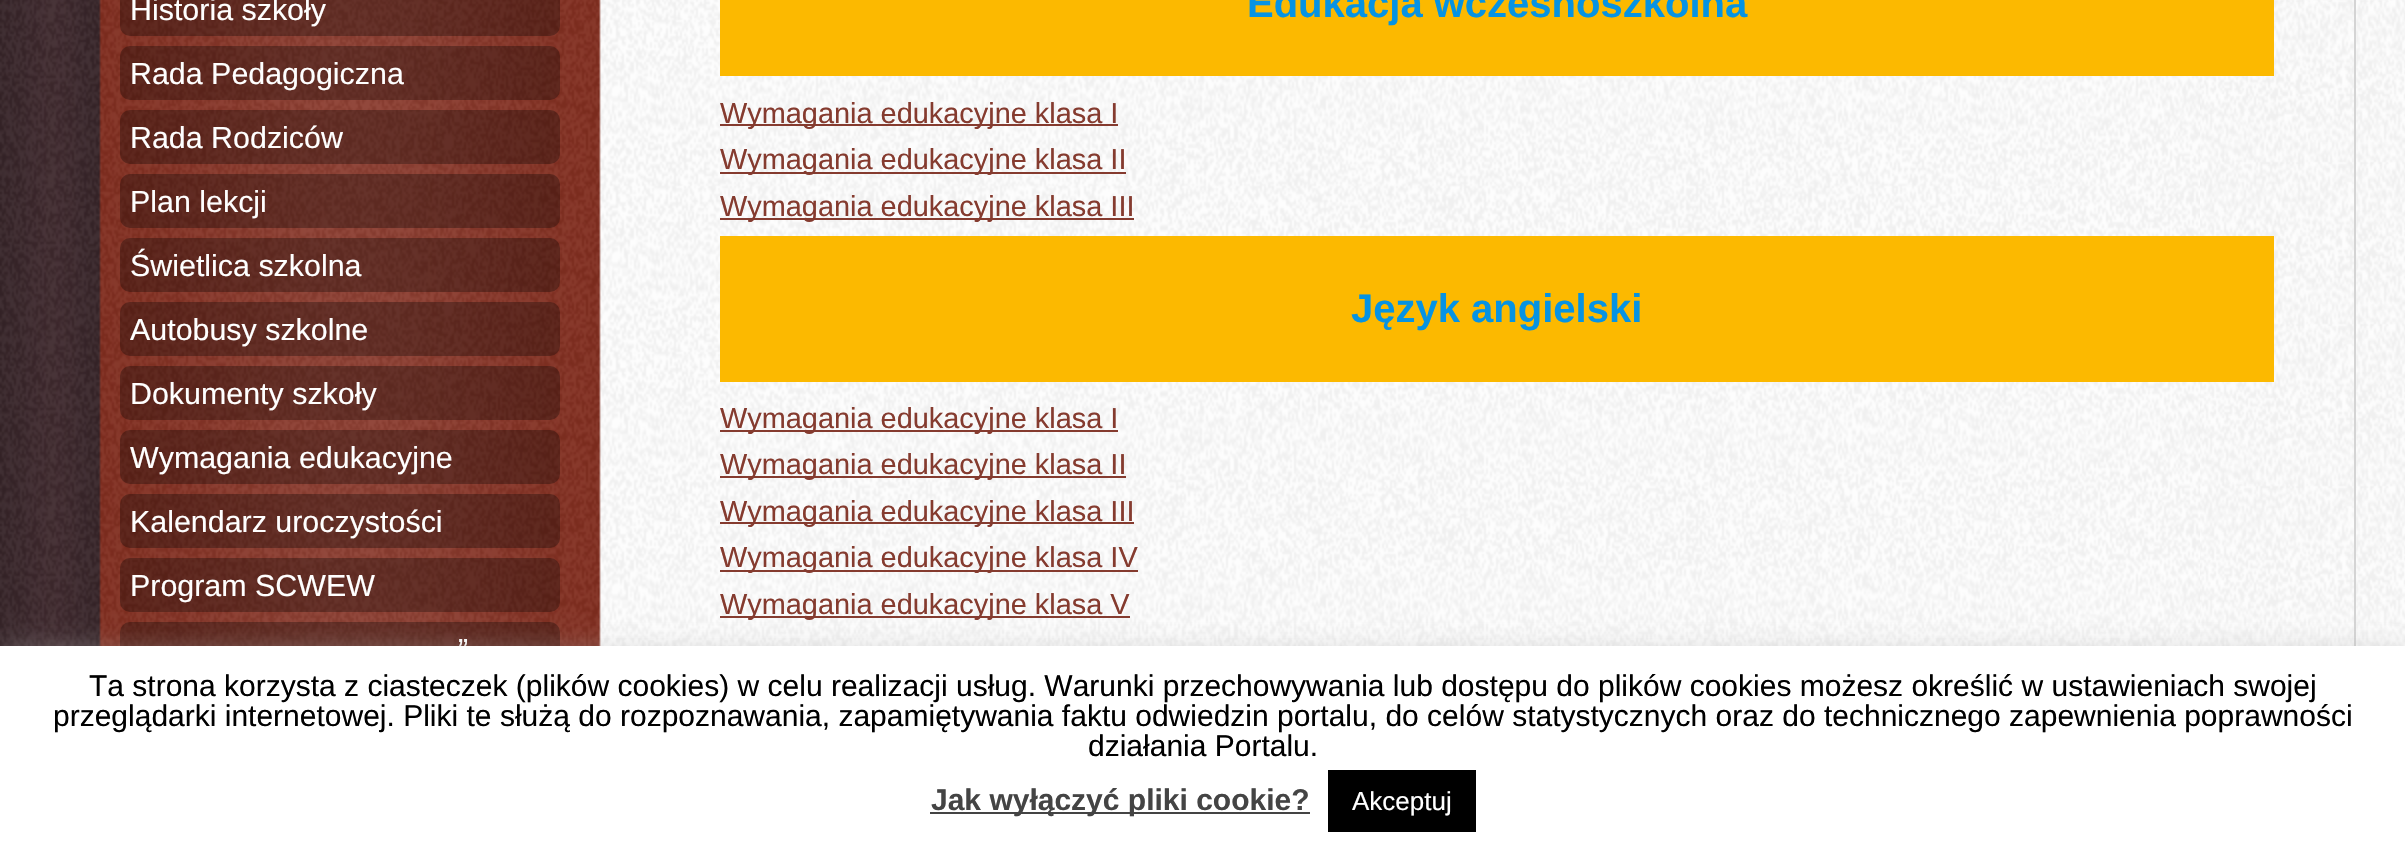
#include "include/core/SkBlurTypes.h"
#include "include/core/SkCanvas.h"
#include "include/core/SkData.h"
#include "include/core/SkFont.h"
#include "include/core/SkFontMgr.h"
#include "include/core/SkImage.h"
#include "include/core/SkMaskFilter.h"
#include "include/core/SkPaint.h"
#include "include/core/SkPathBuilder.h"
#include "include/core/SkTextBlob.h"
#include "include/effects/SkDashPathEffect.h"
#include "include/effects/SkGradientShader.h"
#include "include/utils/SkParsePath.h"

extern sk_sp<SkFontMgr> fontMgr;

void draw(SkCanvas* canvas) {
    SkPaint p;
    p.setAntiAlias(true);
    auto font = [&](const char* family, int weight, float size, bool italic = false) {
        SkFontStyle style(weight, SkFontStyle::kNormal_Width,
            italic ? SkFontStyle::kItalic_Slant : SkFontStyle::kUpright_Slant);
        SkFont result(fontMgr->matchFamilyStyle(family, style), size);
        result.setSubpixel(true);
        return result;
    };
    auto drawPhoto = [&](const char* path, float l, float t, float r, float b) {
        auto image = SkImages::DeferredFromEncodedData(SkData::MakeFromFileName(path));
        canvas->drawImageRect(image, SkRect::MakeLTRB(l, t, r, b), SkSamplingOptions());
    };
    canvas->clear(0xFFFFFFFF);
    drawPhoto("media/1.png", 2200, 0, 2405, 646);
    drawPhoto("media/2.png", 0, 0, 2200, 646);
    p.setColor(0xFFD4D4D4);
    canvas->drawRect(SkRect::MakeLTRB(2354, 0, 2356, 646), p);
    p.setColor(0x4D000000);
    canvas->drawRoundRect(SkRect::MakeLTRB(120, -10, 560, 36), 10, 10, p);
    auto font1 = font("Liberation Sans", 400, 30.4f);
    p.setColor(0xFFFFFFFF);
    canvas->drawString("Historia szkoły", 130, 20, font1, p);
    p.setColor(0x4D000000);
    canvas->drawRoundRect(SkRect::MakeLTRB(120, 46, 560, 100), 10, 10, p);
    p.setColor(0xFFFFFFFF);
    canvas->drawString("Rada Pedagogiczna", 130, 84, font1, p);
    p.setColor(0x4D000000);
    canvas->drawRoundRect(SkRect::MakeLTRB(120, 110, 560, 164), 10, 10, p);
    p.setColor(0xFFFFFFFF);
    canvas->drawString("Rada Rodziców", 130, 148, font1, p);
    p.setColor(0x4D000000);
    canvas->drawRoundRect(SkRect::MakeLTRB(120, 174, 560, 228), 10, 10, p);
    p.setColor(0xFFFFFFFF);
    canvas->drawString("Plan lekcji", 130, 212, font1, p);
    p.setColor(0x4D000000);
    canvas->drawRoundRect(SkRect::MakeLTRB(120, 238, 560, 292), 10, 10, p);
    p.setColor(0xFFFFFFFF);
    canvas->drawString("Świetlica szkolna", 130, 276, font1, p);
    p.setColor(0x4D000000);
    canvas->drawRoundRect(SkRect::MakeLTRB(120, 302, 560, 356), 10, 10, p);
    p.setColor(0xFFFFFFFF);
    canvas->drawString("Autobusy szkolne", 130, 340, font1, p);
    p.setColor(0x4D000000);
    canvas->drawRoundRect(SkRect::MakeLTRB(120, 366, 560, 420), 10, 10, p);
    p.setColor(0xFFFFFFFF);
    canvas->drawString("Dokumenty szkoły", 130, 404, font1, p);
    p.setColor(0x4D000000);
    canvas->drawRoundRect(SkRect::MakeLTRB(120, 430, 560, 484), 10, 10, p);
    p.setColor(0xFFFFFFFF);
    canvas->drawString("Wymagania edukacyjne", 130, 468, font1, p);
    p.setColor(0x4D000000);
    canvas->drawRoundRect(SkRect::MakeLTRB(120, 494, 560, 548), 10, 10, p);
    p.setColor(0xFFFFFFFF);
    canvas->drawString("Kalendarz uroczystości", 130, 532, font1, p);
    p.setColor(0x4D000000);
    canvas->drawRoundRect(SkRect::MakeLTRB(120, 558, 560, 612), 10, 10, p);
    p.setColor(0xFFFFFFFF);
    canvas->drawString("Program SCWEW", 130, 596, font1, p);
    p.setColor(0x4D000000);
    canvas->drawRoundRect(SkRect::MakeLTRB(120, 622, 560, 676), 10, 10, p);
    p.setColor(0xFFFFFFFF);
    canvas->drawString("”", 458, 660, font1, p);
    p.setColor(0xFFFCB900);
    canvas->drawRect(SkRect::MakeLTRB(720, 0, 2274, 76), p);
    auto font2 = font("Liberation Sans", 700, 40);
    p.setColor(0xFF0693E3);
    canvas->drawString("Edukacja wczesnoszkolna", 1247, 17, font2, p);
    p.setColor(0xFF853B2F);
    canvas->drawRect(SkRect::MakeLTRB(720, 124, 1118, 126), p);
    auto font3 = font("Liberation Sans", 400, 28.9f);
    canvas->drawString("Wymagania edukacyjne klasa I", 720, 123, font3, p);
    canvas->drawRect(SkRect::MakeLTRB(720, 172, 1126, 174), p);
    canvas->drawString("Wymagania edukacyjne klasa II", 720, 169, font3, p);
    canvas->drawRect(SkRect::MakeLTRB(720, 218, 1134, 220), p);
    canvas->drawString("Wymagania edukacyjne klasa III", 720, 216, font3, p);
    p.setColor(0xFFFCB900);
    canvas->drawRect(SkRect::MakeLTRB(720, 236, 2274, 382), p);
    p.setColor(0xFF0693E3);
    canvas->drawString("Język angielski", 1351, 322, font2, p);
    p.setColor(0xFF853B2F);
    canvas->drawRect(SkRect::MakeLTRB(720, 430, 1118, 432), p);
    canvas->drawString("Wymagania edukacyjne klasa I", 720, 428, font3, p);
    canvas->drawRect(SkRect::MakeLTRB(720, 476, 1126, 478), p);
    canvas->drawString("Wymagania edukacyjne klasa II", 720, 474, font3, p);
    canvas->drawRect(SkRect::MakeLTRB(720, 522, 1134, 524), p);
    canvas->drawString("Wymagania edukacyjne klasa III", 720, 521, font3, p);
    canvas->drawRect(SkRect::MakeLTRB(720, 570, 1138, 572), p);
    canvas->drawString("Wymagania edukacyjne klasa IV", 720, 567, font3, p);
    canvas->drawRect(SkRect::MakeLTRB(720, 616, 1130, 618), p);
    canvas->drawString("Wymagania edukacyjne klasa V", 720, 614, font3, p);
    p.setColor(0x4DACABAB);
    p.setMaskFilter(SkMaskFilter::MakeBlur(kNormal_SkBlurStyle, 10));
    canvas->drawRect(SkRect::MakeLTRB(0, 644, 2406, 854), p);
    p.setMaskFilter(nullptr);
    p.setColor(0xFFFFFFFF);
    canvas->drawRect(SkRect::MakeLTRB(0, 646, 2405, 856), p);
    auto font4 = font("Liberation Sans", 400, 30);
    p.setColor(0xFF000000);
    {
        const struct { const char* s; float x, y; } items[] = {
            {"Ta strona korzysta z ciasteczek (plików cookies) w celu realizacji usług. Warunki przechowywania lub dostępu do plików cookies możesz określić w ustawieniach swojej", 89, 696},
            {"przeglądarki internetowej. Pliki te służą do rozpoznawania, zapamiętywania faktu odwiedzin portalu, do celów statystycznych oraz do technicznego zapewnienia poprawności", 53, 726},
            {"działania Portalu.", 1088, 756},
        };
        for (auto [s, x, y] : items) {
            canvas->drawString(s, x, y, font4, p);
        }
    }
    p.setColor(0xFF444444);
    canvas->drawRect(SkRect::MakeLTRB(930, 812, 1310, 814), p);
    auto font5 = font("Liberation Sans", 700, 30);
    canvas->drawString("Jak wyłączyć pliki cookie?", 931, 810, font5, p);
    p.setColor(0xFF000000);
    canvas->drawRect(SkRect::MakeLTRB(1328, 770, 1476, 832), p);
    auto font6 = font("Liberation Sans", 400, 26);
    p.setColor(0xFFFFFFFF);
    canvas->drawString("Akceptuj", 1352, 810, font6, p);
}
